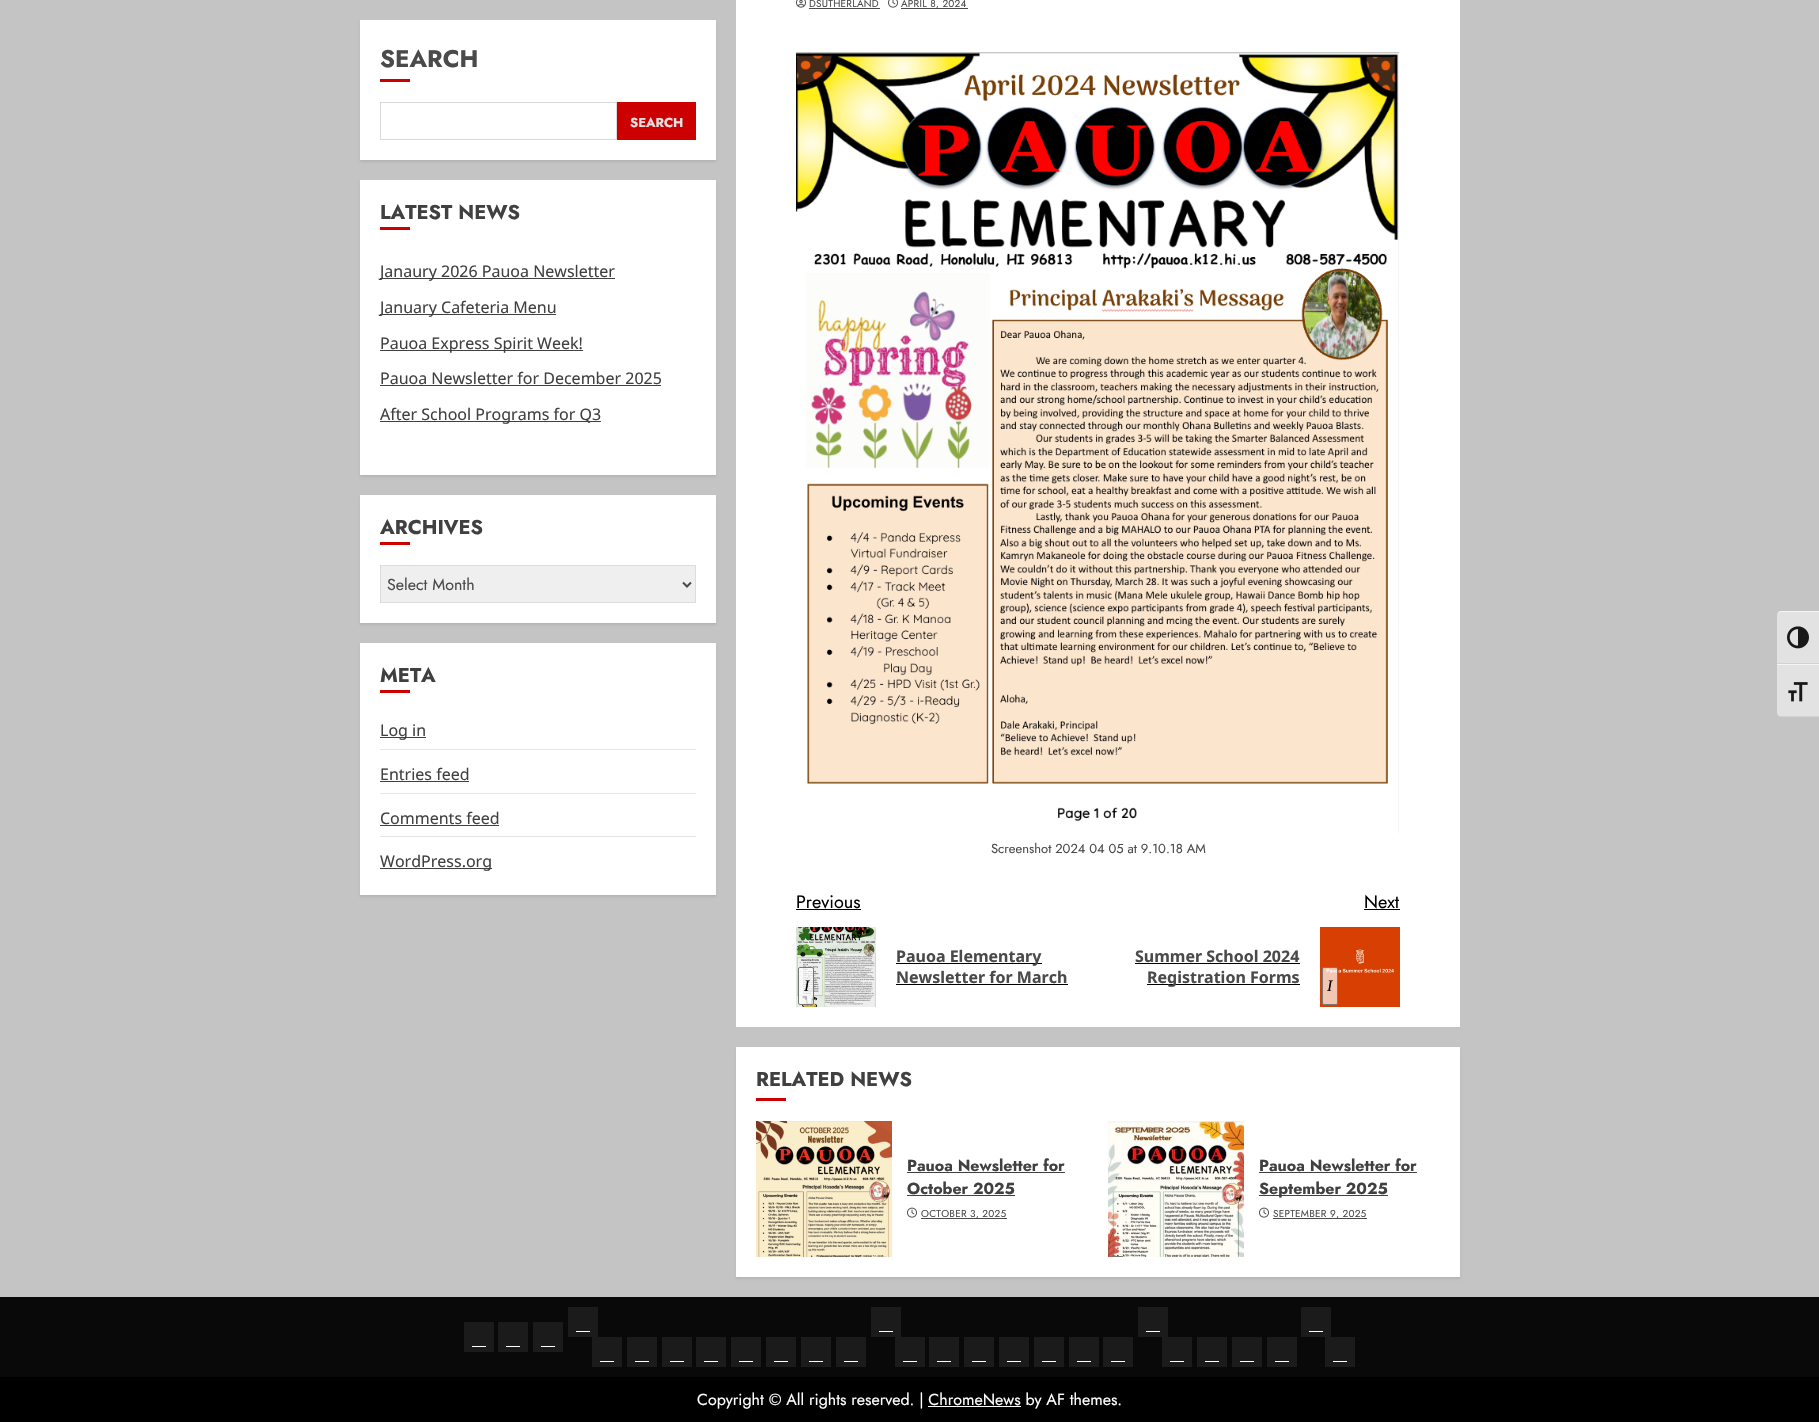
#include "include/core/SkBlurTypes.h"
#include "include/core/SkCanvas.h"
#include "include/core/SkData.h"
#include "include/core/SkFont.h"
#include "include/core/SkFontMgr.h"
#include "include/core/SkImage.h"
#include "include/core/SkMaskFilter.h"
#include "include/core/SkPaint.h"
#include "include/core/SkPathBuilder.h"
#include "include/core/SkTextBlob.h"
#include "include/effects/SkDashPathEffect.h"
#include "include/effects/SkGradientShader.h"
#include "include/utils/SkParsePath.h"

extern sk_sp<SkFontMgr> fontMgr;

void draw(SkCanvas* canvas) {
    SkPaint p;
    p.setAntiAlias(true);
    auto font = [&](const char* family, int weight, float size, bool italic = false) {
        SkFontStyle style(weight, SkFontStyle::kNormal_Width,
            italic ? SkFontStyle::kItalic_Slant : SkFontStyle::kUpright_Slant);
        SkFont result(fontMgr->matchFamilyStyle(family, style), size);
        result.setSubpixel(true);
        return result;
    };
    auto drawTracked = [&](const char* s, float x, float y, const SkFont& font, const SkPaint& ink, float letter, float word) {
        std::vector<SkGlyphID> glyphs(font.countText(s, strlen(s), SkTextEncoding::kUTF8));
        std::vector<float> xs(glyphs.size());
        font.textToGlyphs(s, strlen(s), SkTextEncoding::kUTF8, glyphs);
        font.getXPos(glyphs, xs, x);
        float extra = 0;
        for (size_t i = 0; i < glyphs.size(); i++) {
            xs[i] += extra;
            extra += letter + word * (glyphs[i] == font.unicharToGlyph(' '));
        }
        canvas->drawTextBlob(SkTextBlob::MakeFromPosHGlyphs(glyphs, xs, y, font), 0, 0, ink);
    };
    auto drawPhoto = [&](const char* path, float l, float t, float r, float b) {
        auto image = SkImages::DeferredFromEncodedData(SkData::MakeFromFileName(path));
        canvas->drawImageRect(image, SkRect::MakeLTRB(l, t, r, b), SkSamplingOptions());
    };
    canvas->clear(0xFFC4C4C4);
    p.setColor(0x14000000);
    p.setMaskFilter(SkMaskFilter::MakeBlur(kNormal_SkBlurStyle, 1));
    canvas->drawRect(SkRect::MakeLTRB(360, 22, 716, 162), p);
    p.setMaskFilter(nullptr);
    p.setColor(0xFFFFFFFF);
    canvas->drawRect(SkRect::MakeLTRB(360, 20, 716, 160), p);
    auto font1 = font("Jost", 700, 24);
    p.setColor(0xFF4A4A4A);
    canvas->drawString("SEARCH", 380, 67, font1, p);
    p.setColor(0xFFCC0000);
    canvas->drawRect(SkRect::MakeLTRB(380, 79, 410, 82), p);
    p.setStyle(SkPaint::kStroke_Style);
    p.setStrokeWidth(1);
    p.setColor(0xFFD9D9D9);
    canvas->drawRect(SkRect::MakeLTRB(380.5f, 102.5f, 616.5f, 139.5f), p);
    p.setStyle(SkPaint::kFill_Style);
    p.setColor(0xFFCC0000);
    canvas->drawRect(SkRect::MakeLTRB(617, 102, 696, 140), p);
    auto font2 = font("Jost", 700, 13);
    p.setColor(0xFFE2E2E2);
    canvas->drawString("SEARCH", 630, 127, font2, p);
    p.setColor(0x14000000);
    p.setMaskFilter(SkMaskFilter::MakeBlur(kNormal_SkBlurStyle, 1));
    canvas->drawRect(SkRect::MakeLTRB(360, 182, 716, 477), p);
    p.setMaskFilter(nullptr);
    p.setColor(0xFFFFFFFF);
    canvas->drawRect(SkRect::MakeLTRB(360, 180, 716, 475), p);
    auto font3 = font("Jost", 700, 20);
    p.setColor(0xFF404040);
    canvas->drawString("LATEST NEWS", 380, 219, font3, p);
    p.setColor(0xFFCC0000);
    canvas->drawRect(SkRect::MakeLTRB(380, 227, 410, 230), p);
    p.setColor(0xFF404040);
    canvas->drawRect(SkRect::MakeLTRB(380, 278, 615, 279), p);
    auto font4 = font("Noto Sans", 400, 16);
    canvas->drawString("Janaury 2026 Pauoa Newsletter", 380, 277, font4, p);
    canvas->drawRect(SkRect::MakeLTRB(380, 314, 556, 315), p);
    canvas->drawString("January Cafeteria Menu", 380, 313, font4, p);
    canvas->drawRect(SkRect::MakeLTRB(380, 350, 583, 351), p);
    canvas->drawString("Pauoa Express Spirit Week!", 380, 349, font4, p);
    canvas->drawString("Pauoa Newsletter for December 2025", 380, 384, font4, p);
    canvas->drawRect(SkRect::MakeLTRB(380, 385, 661, 386), p);
    canvas->drawRect(SkRect::MakeLTRB(380, 421, 601, 422), p);
    canvas->drawString("After School Programs for Q3", 380, 420, font4, p);
    p.setColor(0x14000000);
    p.setMaskFilter(SkMaskFilter::MakeBlur(kNormal_SkBlurStyle, 1));
    canvas->drawRect(SkRect::MakeLTRB(360, 497, 716, 625), p);
    p.setMaskFilter(nullptr);
    p.setColor(0xFFFFFFFF);
    canvas->drawRect(SkRect::MakeLTRB(360, 495, 716, 623), p);
    p.setColor(0xFF404040);
    canvas->drawString("ARCHIVES", 380, 534, font3, p);
    p.setColor(0xFFCC0000);
    canvas->drawRect(SkRect::MakeLTRB(380, 542, 410, 545), p);
    p.setColor(0xFFEFEFEF);
    canvas->drawRect(SkRect::MakeLTRB(380.5f, 565.5f, 695.5f, 602.5f), p);
    p.setStyle(SkPaint::kStroke_Style);
    p.setColor(0xFFDCDCDC);
    canvas->drawRect(SkRect::MakeLTRB(380.5f, 565.5f, 695.5f, 602.5f), p);
    p.setStrokeWidth(2);
    p.setColor(0xFF4A4A4A);
    canvas->drawPath(SkPathBuilder().moveTo(683, 582.5f).lineTo(687, 586.5f).lineTo(691, 582.5f).detach(), p);
    auto font5 = font("Jost", 400, 16);
    p.setStyle(SkPaint::kFill_Style);
    canvas->drawString("Select Month", 387, 590, font5, p);
    p.setColor(0x14000000);
    p.setMaskFilter(SkMaskFilter::MakeBlur(kNormal_SkBlurStyle, 1));
    canvas->drawRect(SkRect::MakeLTRB(360, 645, 716, 897), p);
    p.setMaskFilter(nullptr);
    p.setColor(0xFFFFFFFF);
    canvas->drawRect(SkRect::MakeLTRB(360, 643, 716, 895), p);
    p.setColor(0xFF404040);
    canvas->drawString("META", 380, 682, font3, p);
    {
        const struct { float l, t, r, b; SkColor color; } items[] = {
            {380, 690, 410, 693, 0xFFCC0000},
            {380, 749, 696, 750, 0xFFE6E6E6},
            {380, 737, 426, 738, 0xFF404040},
        };
        for (auto [l, t, r, b, color] : items) {
            p.setColor(color);
            canvas->drawRect(SkRect::MakeLTRB(l, t, r, b), p);
        }
    }
    canvas->drawString("Log in", 380, 736, font4, p);
    p.setColor(0xFFE6E6E6);
    canvas->drawRect(SkRect::MakeLTRB(380, 793, 696, 794), p);
    p.setColor(0xFF404040);
    canvas->drawString("Entries feed", 380, 780, font4, p);
    canvas->drawRect(SkRect::MakeLTRB(380, 781, 469, 782), p);
    p.setColor(0xFFE6E6E6);
    canvas->drawRect(SkRect::MakeLTRB(380, 836, 696, 837), p);
    p.setColor(0xFF404040);
    canvas->drawString("Comments feed", 380, 824, font4, p);
    canvas->drawRect(SkRect::MakeLTRB(380, 825, 499, 826), p);
    canvas->drawRect(SkRect::MakeLTRB(380, 868, 492, 869), p);
    canvas->drawString("WordPress.org", 380, 867, font4, p);
    p.setColor(0xFFFFFFFF);
    canvas->drawRect(SkRect::MakeLTRB(736, 0, 1460, 1027), p);
    drawPhoto("media/1.png", 796, 0, 806, 8);
    auto font6 = font("Jost", 400, 10);
    p.setColor(0xFF4A4A4A);
    drawTracked("DSUTHERLAND", 809, 7, font6, p, 0.25f, 0);
    canvas->drawRect(SkRect::MakeLTRB(809, 8, 880, 9), p);
    drawPhoto("media/2.png", 888, 0, 898, 8);
    canvas->drawRect(SkRect::MakeLTRB(901, 8, 968, 9), p);
    drawTracked("APRIL 8, 2024", 901, 7, font6, p, 0.25f, 0);
    drawPhoto("media/3.png", 796, 52, 1399, 833);
    auto font7 = font("Jost", 400, 13);
    canvas->drawString("Screenshot 2024 04 05 at 9.10.18 AM", 991, 853, font7, p);
    auto font8 = font("Jost", 400, 18);
    p.setColor(0xFF000000);
    canvas->drawString("Previous", 796, 908, font8, p);
    canvas->drawRect(SkRect::MakeLTRB(796, 909, 861, 910), p);
    canvas->drawRect(SkRect::MakeLTRB(896, 963, 1042, 964), p);
    auto font9 = font("Noto Sans", 700, 16);
    p.setColor(0xFF4A4A4A);
    canvas->drawString("Pauoa Elementary", 896, 962, font9, p);
    canvas->drawString("Newsletter for March", 896, 983, font9, p);
    p.setColor(0xFF000000);
    canvas->drawRect(SkRect::MakeLTRB(896, 984, 1068, 985), p);
    drawPhoto("media/4.png", 796, 927, 876, 1007);
    p.setColor(0xB3FFFFFF);
    canvas->drawRoundRect(SkRect::MakeLTRB(798.5f, 967.5f, 813.5f, 1004.5f), 1.5f, 1.5f, p);
    p.setStyle(SkPaint::kStroke_Style);
    p.setStrokeWidth(1);
    p.setColor(0xFF777777);
    canvas->drawRoundRect(SkRect::MakeLTRB(798.5f, 967.5f, 813.5f, 1004.5f), 1.5f, 1.5f, p);
    auto font10 = font("Liberation Serif", 400, 16, true);
    p.setStyle(SkPaint::kFill_Style);
    p.setColor(0xFF000000);
    canvas->drawString("I", 804, 991, font10, p);
    canvas->drawString("Next", 1364, 908, font8, p);
    canvas->drawRect(SkRect::MakeLTRB(1364, 909, 1400, 910), p);
    p.setColor(0xFF4A4A4A);
    canvas->drawString("Summer School 2024", 1135, 962, font9, p);
    p.setColor(0xFF000000);
    canvas->drawRect(SkRect::MakeLTRB(1135, 963, 1300, 964), p);
    canvas->drawRect(SkRect::MakeLTRB(1147, 984, 1300, 985), p);
    p.setColor(0xFF4A4A4A);
    canvas->drawString("Registration Forms", 1147, 983, font9, p);
    drawPhoto("media/5.png", 1320, 927, 1400, 1007);
    p.setColor(0xB3FFFFFF);
    canvas->drawRoundRect(SkRect::MakeLTRB(1322.5f, 967.5f, 1337.5f, 1004.5f), 1.5f, 1.5f, p);
    p.setStyle(SkPaint::kStroke_Style);
    p.setColor(0xFF777777);
    canvas->drawRoundRect(SkRect::MakeLTRB(1322.5f, 967.5f, 1337.5f, 1004.5f), 1.5f, 1.5f, p);
    p.setStyle(SkPaint::kFill_Style);
    p.setColor(0xFF000000);
    canvas->drawString("I", 1327, 991, font10, p);
    p.setColor(0x14000000);
    p.setMaskFilter(SkMaskFilter::MakeBlur(kNormal_SkBlurStyle, 1));
    canvas->drawRect(SkRect::MakeLTRB(736, 1049, 1460, 1279), p);
    p.setMaskFilter(nullptr);
    p.setColor(0xFFFFFFFF);
    canvas->drawRect(SkRect::MakeLTRB(736, 1047, 1460, 1277), p);
    p.setColor(0xFF404040);
    canvas->drawString("RELATED NEWS", 756, 1086, font3, p);
    p.setColor(0xFFCC0000);
    canvas->drawRect(SkRect::MakeLTRB(756, 1098, 786, 1101), p);
    drawPhoto("media/6.png", 756, 1121, 892, 1257);
    auto font11 = font("Jost", 700, 16);
    p.setColor(0xFF404040);
    canvas->drawString("Pauoa Newsletter for", 907, 1171, font11, p);
    canvas->drawRect(SkRect::MakeLTRB(907, 1172, 1065, 1173), p);
    canvas->drawString("October 2025", 907, 1194, font11, p);
    canvas->drawRect(SkRect::MakeLTRB(907, 1195, 1015, 1196), p);
    drawPhoto("media/7.png", 907, 1207, 917, 1218);
    p.setColor(0xFF4A4A4A);
    canvas->drawRect(SkRect::MakeLTRB(921, 1218, 1007, 1219), p);
    drawTracked("OCTOBER 3, 2025", 921, 1217, font6, p, 0.25f, 0);
    drawPhoto("media/8.png", 1108, 1121, 1244, 1257);
    canvas->save();
    canvas->clipRect(SkRect::MakeLTRB(1108, 1121, 1244, 1257));
    p.setStyle(SkPaint::kStroke_Style);
    p.setColor(0xFF777777);
    canvas->drawRoundRect(SkRect::MakeLTRB(1110.5f, 1256.5f, 1123.5f, 1293.5f), 1.5f, 1.5f, p);
    canvas->restore();
    p.setStyle(SkPaint::kFill_Style);
    p.setColor(0xFF404040);
    canvas->drawString("Pauoa Newsletter for", 1259, 1171, font11, p);
    canvas->drawRect(SkRect::MakeLTRB(1259, 1172, 1417, 1173), p);
    canvas->drawRect(SkRect::MakeLTRB(1259, 1195, 1388, 1196), p);
    canvas->drawString("September 2025", 1259, 1194, font11, p);
    drawPhoto("media/7.png", 1259, 1207, 1269, 1218);
    p.setColor(0xFF4A4A4A);
    canvas->drawRect(SkRect::MakeLTRB(1273, 1218, 1367, 1219), p);
    drawTracked("SEPTEMBER 9, 2025", 1273, 1217, font6, p, 0.25f, 0);
    {
        const struct { float l, t, r, b; SkColor color; } items[] = {
            {0, 1297, 1819, 1377, 0xFF090909},
            {464, 1322, 494, 1352, 0xFF1B1B1B},
            {472, 1346, 486, 1347, 0xFFFFFFFF},
            {498, 1322, 528, 1352, 0xFF1B1B1B},
            {506, 1346, 520, 1347, 0xFFFFFFFF},
            {533, 1322, 563, 1352, 0xFF1B1B1B},
            {541, 1346, 555, 1347, 0xFFFFFFFF},
            {568, 1307, 598, 1337, 0xFF1B1B1B},
            {576, 1331, 590, 1332, 0xFFFFFFFF},
            {592, 1337, 622, 1367, 0xFF1B1B1B},
            {600, 1361, 614, 1362, 0xFFFFFFFF},
            {627, 1337, 657, 1367, 0xFF1B1B1B},
            {635, 1361, 649, 1362, 0xFFFFFFFF},
            {662, 1337, 692, 1367, 0xFF1B1B1B},
            {670, 1361, 684, 1362, 0xFFFFFFFF},
            {696, 1337, 726, 1367, 0xFF1B1B1B},
            {704, 1361, 718, 1362, 0xFFFFFFFF},
            {731, 1337, 761, 1367, 0xFF1B1B1B},
            {739, 1361, 753, 1362, 0xFFFFFFFF},
            {766, 1337, 796, 1367, 0xFF1B1B1B},
            {774, 1361, 788, 1362, 0xFFFFFFFF},
            {801, 1337, 831, 1367, 0xFF1B1B1B},
            {809, 1361, 823, 1362, 0xFFFFFFFF},
            {836, 1337, 866, 1367, 0xFF1B1B1B},
            {844, 1361, 858, 1362, 0xFFFFFFFF},
            {871, 1307, 901, 1337, 0xFF1B1B1B},
            {879, 1331, 893, 1332, 0xFFFFFFFF},
            {895, 1337, 925, 1367, 0xFF1B1B1B},
            {903, 1361, 917, 1362, 0xFFFFFFFF},
            {929, 1337, 959, 1367, 0xFF1B1B1B},
            {937, 1361, 951, 1362, 0xFFFFFFFF},
            {964, 1337, 994, 1367, 0xFF1B1B1B},
            {972, 1361, 986, 1362, 0xFFFFFFFF},
            {999, 1337, 1029, 1367, 0xFF1B1B1B},
            {1007, 1361, 1021, 1362, 0xFFFFFFFF},
            {1034, 1337, 1064, 1367, 0xFF1B1B1B},
            {1042, 1361, 1056, 1362, 0xFFFFFFFF},
            {1069, 1337, 1099, 1367, 0xFF1B1B1B},
            {1077, 1361, 1091, 1362, 0xFFFFFFFF},
            {1103, 1337, 1133, 1367, 0xFF1B1B1B},
            {1111, 1361, 1125, 1362, 0xFFFFFFFF},
            {1138, 1307, 1168, 1337, 0xFF1B1B1B},
            {1146, 1331, 1160, 1332, 0xFFFFFFFF},
            {1162, 1337, 1192, 1367, 0xFF1B1B1B},
            {1170, 1361, 1184, 1362, 0xFFFFFFFF},
            {1197, 1337, 1227, 1367, 0xFF1B1B1B},
            {1205, 1361, 1219, 1362, 0xFFFFFFFF},
            {1232, 1337, 1262, 1367, 0xFF1B1B1B},
            {1240, 1361, 1254, 1362, 0xFFFFFFFF},
            {1267, 1337, 1297, 1367, 0xFF1B1B1B},
            {1275, 1361, 1289, 1362, 0xFFFFFFFF},
            {1301, 1307, 1331, 1337, 0xFF1B1B1B},
            {1309, 1331, 1323, 1332, 0xFFFFFFFF},
            {1325, 1337, 1355, 1367, 0xFF1B1B1B},
            {1333, 1361, 1347, 1362, 0xFFFFFFFF},
            {0, 1377, 1819, 1422, 0xFF000000},
        };
        for (auto [l, t, r, b, color] : items) {
            p.setColor(color);
            canvas->drawRect(SkRect::MakeLTRB(l, t, r, b), p);
        }
    }
    p.setColor(0xFFFFFFFF);
    canvas->drawString("Copyright © All rights reserved. | ChromeNews by AF themes.", 697, 1405, font5, p);
    canvas->drawRect(SkRect::MakeLTRB(928, 1406, 1021, 1407), p);
    p.setColor(0xFFE2E2E2);
    canvas->drawPath(SkPathBuilder().moveTo(1781, 611).lineTo(1819, 611).lineTo(1819, 664).lineTo(1777, 664).lineTo(1777, 615).cubicTo(1777, 613, 1779, 611, 1781, 611).close().detach(), p);
    p.setColor(0xFFF5F5F5);
    canvas->drawPath(SkPathBuilder().moveTo(1781, 612).lineTo(1819, 612).lineTo(1819, 611).lineTo(1781, 611).cubicTo(1779, 611, 1777, 613, 1777, 615).cubicTo(1777, 613, 1779, 612, 1781, 612).close().detach(), p);
    p.setColor(0xFFD2D2D2);
    canvas->drawRect(SkRect::MakeLTRB(1777, 663, 1819, 664), p);
    drawPhoto("media/9.png", 1787, 626, 1809, 649);
    p.setColor(0xFFE2E2E2);
    canvas->drawPath(SkPathBuilder().moveTo(1777, 664).lineTo(1819, 664).lineTo(1819, 717).lineTo(1781, 717).cubicTo(1779, 717, 1777, 715, 1777, 713).close().detach(), p);
    p.setColor(0xFFF5F5F5);
    canvas->drawRect(SkRect::MakeLTRB(1777, 664, 1819, 665), p);
    p.setColor(0xFFD2D2D2);
    canvas->drawPath(SkPathBuilder().moveTo(1819, 717).lineTo(1819, 716).lineTo(1781, 716).cubicTo(1779, 716, 1777, 715, 1777, 713).cubicTo(1777, 715, 1779, 717, 1781, 717).close().detach(), p);
    drawPhoto("media/10.png", 1788, 682, 1808, 702);
}
